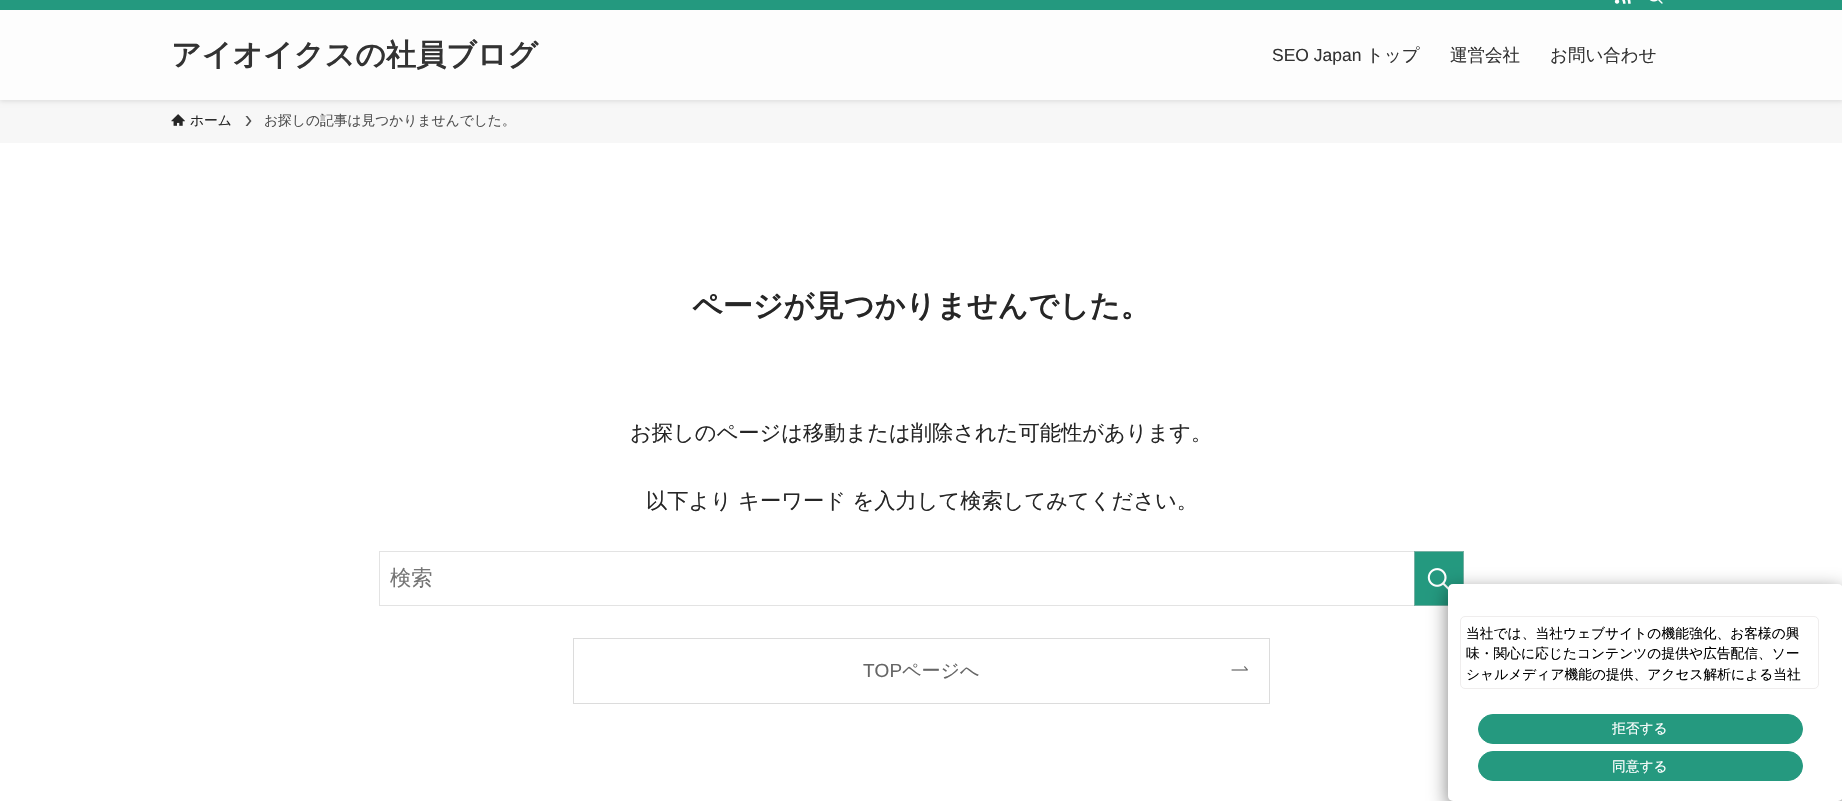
#include "include/core/SkBlurTypes.h"
#include "include/core/SkCanvas.h"
#include "include/core/SkData.h"
#include "include/core/SkFont.h"
#include "include/core/SkFontMgr.h"
#include "include/core/SkImage.h"
#include "include/core/SkMaskFilter.h"
#include "include/core/SkPaint.h"
#include "include/core/SkPathBuilder.h"
#include "include/core/SkTextBlob.h"
#include "include/effects/SkDashPathEffect.h"
#include "include/effects/SkGradientShader.h"
#include "include/utils/SkParsePath.h"

extern sk_sp<SkFontMgr> fontMgr;

void draw(SkCanvas* canvas) {
    SkPaint p;
    p.setAntiAlias(true);
    auto font = [&](const char* family, int weight, float size, bool italic = false) {
        SkFontStyle style(weight, SkFontStyle::kNormal_Width,
            italic ? SkFontStyle::kItalic_Slant : SkFontStyle::kUpright_Slant);
        SkFont result(fontMgr->matchFamilyStyle(family, style), size);
        result.setSubpixel(true);
        return result;
    };
    auto drawPhoto = [&](const char* path, float l, float t, float r, float b) {
        auto image = SkImages::DeferredFromEncodedData(SkData::MakeFromFileName(path));
        canvas->drawImageRect(image, SkRect::MakeLTRB(l, t, r, b), SkSamplingOptions());
    };
    canvas->clear(0xFFFFFFFF);
    p.setColor(0xFFF7F7F7);
    canvas->drawRect(SkRect::MakeLTRB(0, 100, 1842, 143), p);
    p.setColor(0x1F000000);
    p.setMaskFilter(SkMaskFilter::MakeBlur(kNormal_SkBlurStyle, 2.5f));
    canvas->drawRect(SkRect::MakeLTRB(0, -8, 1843, 101), p);
    p.setMaskFilter(nullptr);
    p.setColor(0xFFFDFDFD);
    canvas->drawRect(SkRect::MakeLTRB(0, 10, 1842, 100), p);
    p.setColor(0xFF24997F);
    canvas->drawRect(SkRect::MakeLTRB(0, 0, 1842, 10), p);
    drawPhoto("media/1.png", 1614, 0, 1631, 4);
    drawPhoto("media/2.png", 1649, 0, 1663, 4);
    auto font1 = font("WenQuanYi Zen Hei", 700, 30);
    p.setColor(0xFF333333);
    canvas->drawString("アイオイクスの社員ブログ", 171, 65, font1, p);
    auto font2 = font("Liberation Sans", 400, 17.5f);
    canvas->drawString("SEO Japan", 1272, 61, font2, p);
    auto font3 = font("WenQuanYi Zen Hei", 500, 17.5f);
    {
        const struct { const char* s; float x, y; } items[] = {
            {"トップ", 1366, 61},
            {"運営会社", 1450, 61},
            {"お問い合わせ", 1550, 61},
        };
        for (auto [s, x, y] : items) {
            canvas->drawString(s, x, y, font3, p);
        }
    }
    drawPhoto("media/3.png", 171, 114, 185, 126);
    auto font4 = font("WenQuanYi Zen Hei", 500, 13.75f);
    p.setColor(0xFF262626);
    canvas->drawString("ホーム", 190, 125, font4, p);
    p.setColor(0xFF505050);
    canvas->drawPath(SkPathBuilder().moveTo(247.5f, 116).lineTo(245.5f, 116).lineTo(249.5f, 121).lineTo(245.5f, 126).lineTo(247.5f, 126).lineTo(251.5f, 121).close().detach(), p);
    canvas->drawString("お探しの記事は見つかりませんでした。", 264, 125, font4, p);
    p.setColor(0xFF262626);
    canvas->drawString("ページが見つかりませんでした。", 692, 316, font1, p);
    auto font5 = font("WenQuanYi Zen Hei", 500, 21.25f);
    canvas->drawString("お探しのページは移動または削除された可能性があります。", 630, 440, font5, p);
    canvas->drawString("以下より キーワード を入力して検索してみてください。", 646, 508, font5, p);
    p.setStyle(SkPaint::kStroke_Style);
    p.setStrokeWidth(1);
    p.setColor(0xFFE3E3E3);
    canvas->drawRect(SkRect::MakeLTRB(379.5f, 551.5f, 1463.5f, 605.5f), p);
    p.setStyle(SkPaint::kFill_Style);
    p.setColor(0xFF757575);
    canvas->drawString("検索", 390, 585, font5, p);
    p.setColor(0xFF24997F);
    canvas->drawRect(SkRect::MakeLTRB(1414.5f, 551.5f, 1463.5f, 605.5f), p);
    p.setStyle(SkPaint::kStroke_Style);
    p.setColor(0xFF76B0A3);
    canvas->drawRect(SkRect::MakeLTRB(1414.5f, 551.5f, 1463.5f, 605.5f), p);
    drawPhoto("media/4.png", 1427, 568, 1449, 590);
    p.setColor(0xFFDCDCDC);
    canvas->drawRect(SkRect::MakeLTRB(573.5f, 638.5f, 1269.5f, 703.5f), p);
    auto font6 = font("Liberation Sans", 400, 19);
    p.setStyle(SkPaint::kFill_Style);
    p.setColor(0xFF666666);
    canvas->drawString("TOP", 863, 677, font6, p);
    auto font7 = font("WenQuanYi Zen Hei", 500, 19);
    canvas->drawString("ページへ", 902, 677, font7, p);
    drawPhoto("media/5.png", 1231, 666, 1248, 671);
    p.setColor(0x80000000);
    p.setMaskFilter(SkMaskFilter::MakeBlur(kNormal_SkBlurStyle, 9.5f));
    canvas->drawRoundRect(SkRect::MakeLTRB(1448, 590, 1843, 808), 5, 5, p);
    p.setMaskFilter(nullptr);
    p.setColor(0xFFFFFFFF);
    canvas->drawRoundRect(SkRect::MakeLTRB(1448, 584, 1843, 801), 5, 5, p);
    p.setStyle(SkPaint::kStroke_Style);
    p.setColor(0xFFEFEDED);
    canvas->drawRoundRect(SkRect::MakeLTRB(1460.5f, 616.5f, 1818.5f, 688.5f), 4.5f, 4.5f, p);
    p.setStyle(SkPaint::kFill_Style);
    p.setColor(0xFF000000);
    {
        const struct { const char* s; float x, y; } items[] = {
            {"当社では、当社ウェブサイトの機能強化、お客様の興", 1466, 638},
            {"味・関心に応じたコンテンツの提供や広告配信、ソー", 1466, 658},
            {"シャルメディア機能の提供、アクセス解析による当社", 1466, 679},
        };
        for (auto [s, x, y] : items) {
            canvas->drawString(s, x, y, font4, p);
        }
    }
    p.setColor(0xFF25997F);
    canvas->drawRoundRect(SkRect::MakeLTRB(1478.5f, 714.5f, 1802.5f, 743.5f), 14.5f, 14.5f, p);
    p.setStyle(SkPaint::kStroke_Style);
    canvas->drawRoundRect(SkRect::MakeLTRB(1478.5f, 714.5f, 1802.5f, 743.5f), 14.5f, 14.5f, p);
    p.setStyle(SkPaint::kFill_Style);
    p.setColor(0xFFFFFFFF);
    canvas->drawString("拒否する", 1612, 733, font4, p);
    p.setColor(0xFF25997F);
    canvas->drawRoundRect(SkRect::MakeLTRB(1478.5f, 751.5f, 1802.5f, 780.5f), 14.5f, 14.5f, p);
    p.setStyle(SkPaint::kStroke_Style);
    canvas->drawRoundRect(SkRect::MakeLTRB(1478.5f, 751.5f, 1802.5f, 780.5f), 14.5f, 14.5f, p);
    p.setStyle(SkPaint::kFill_Style);
    p.setColor(0xFFFFFFFF);
    canvas->drawString("同意する", 1612, 771, font4, p);
}
